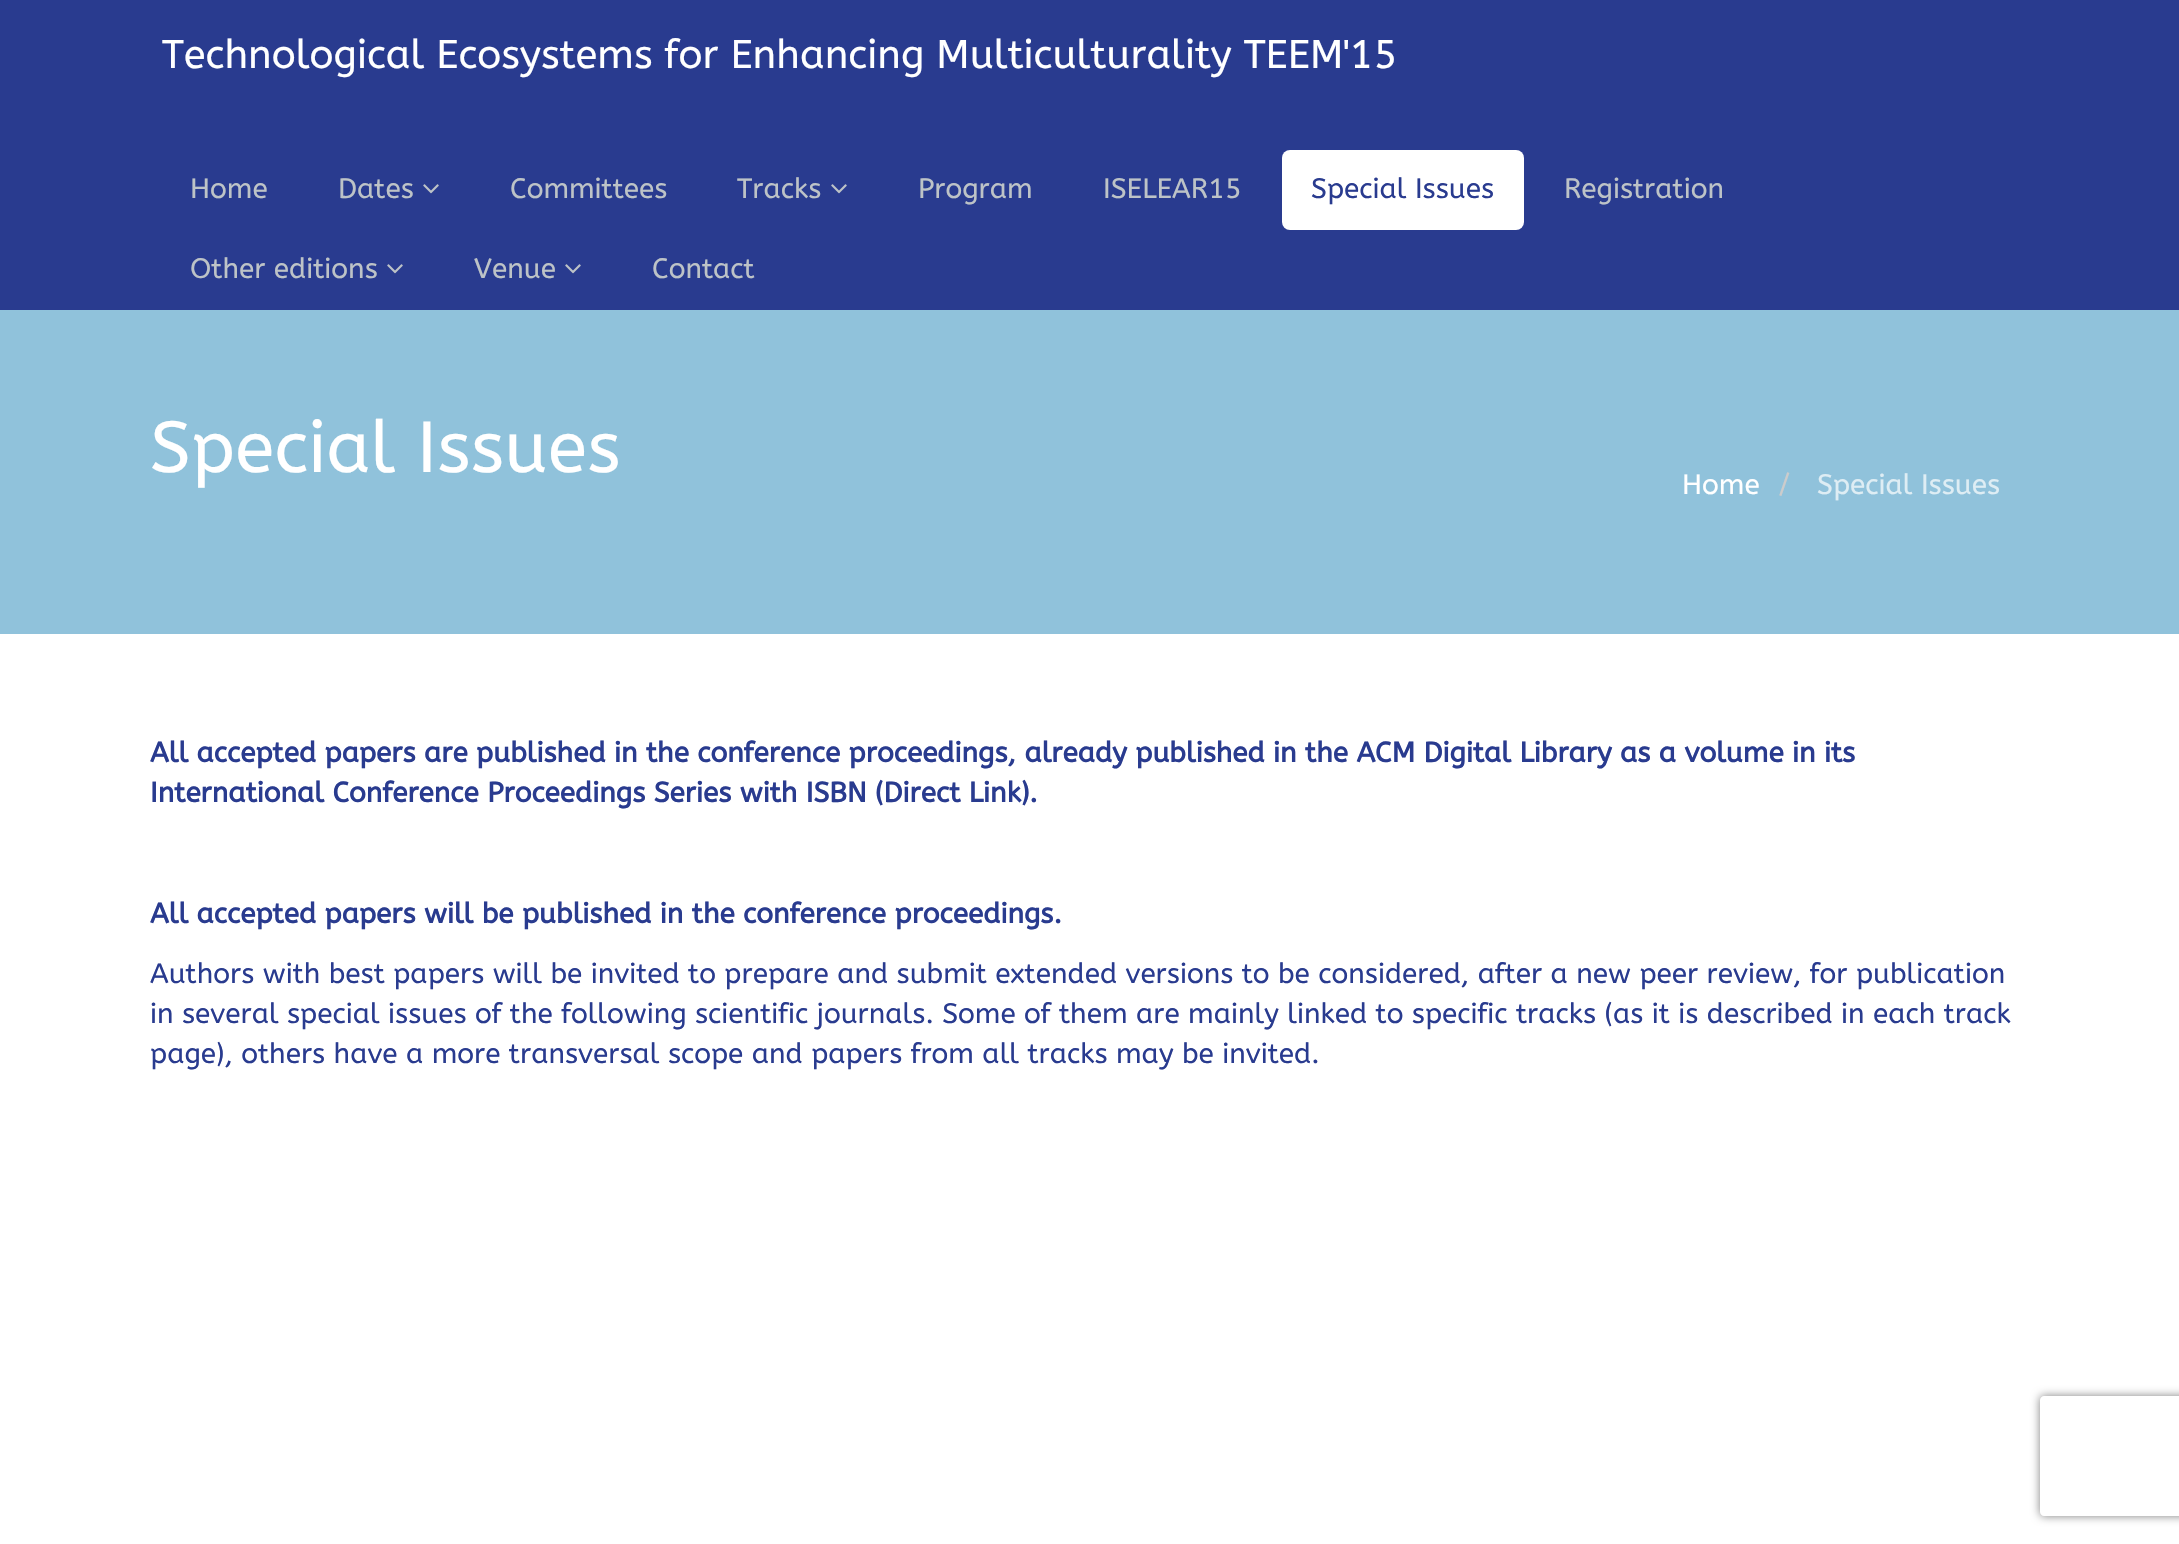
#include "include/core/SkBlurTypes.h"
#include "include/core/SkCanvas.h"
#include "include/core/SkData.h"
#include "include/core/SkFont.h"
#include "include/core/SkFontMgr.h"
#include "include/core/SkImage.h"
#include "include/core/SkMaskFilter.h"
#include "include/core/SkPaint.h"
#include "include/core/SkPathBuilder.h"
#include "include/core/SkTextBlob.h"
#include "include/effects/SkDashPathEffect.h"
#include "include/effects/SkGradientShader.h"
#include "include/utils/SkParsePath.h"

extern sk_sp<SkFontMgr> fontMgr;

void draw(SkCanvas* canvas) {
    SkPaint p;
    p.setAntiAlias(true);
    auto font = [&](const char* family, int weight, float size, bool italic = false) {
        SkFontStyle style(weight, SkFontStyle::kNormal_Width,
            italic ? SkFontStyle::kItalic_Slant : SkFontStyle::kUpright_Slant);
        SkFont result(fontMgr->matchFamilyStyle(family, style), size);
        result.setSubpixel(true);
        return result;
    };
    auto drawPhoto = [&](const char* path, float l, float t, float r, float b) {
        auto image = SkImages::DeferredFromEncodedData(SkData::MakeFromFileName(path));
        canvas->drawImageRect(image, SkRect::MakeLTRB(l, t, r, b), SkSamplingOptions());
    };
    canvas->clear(0xFFFFFFFF);
    p.setColor(0xFF293B8F);
    canvas->drawRect(SkRect::MakeLTRB(0, 0, 2179, 310), p);
    auto font1 = font("ABeeZee", 400, 40);
    p.setColor(0xFFFFFFFF);
    canvas->drawString("Technological Ecosystems for Enhancing Multiculturality TEEM'15", 162, 68, font1, p);
    auto font2 = font("ABeeZee", 400, 28);
    p.setColor(0xFFBDC3C7);
    canvas->drawString("Home", 190, 198, font2, p);
    canvas->drawString("Dates", 338, 198, font2, p);
    drawPhoto("media/1.png", 423, 184, 439, 194);
    canvas->drawString("Committees", 510, 198, font2, p);
    canvas->drawString("Tracks", 737, 198, font2, p);
    drawPhoto("media/1.png", 831, 184, 847, 194);
    canvas->drawString("Program", 918, 198, font2, p);
    canvas->drawString("ISELEAR15", 1103, 198, font2, p);
    p.setColor(0xFFFFFFFF);
    canvas->drawRoundRect(SkRect::MakeLTRB(1282, 150, 1524, 230), 8, 8, p);
    p.setColor(0xFF293B8F);
    canvas->drawString("Special Issues", 1311, 198, font2, p);
    p.setColor(0xFFBDC3C7);
    canvas->drawString("Registration", 1564, 198, font2, p);
    canvas->drawString("Other editions", 190, 278, font2, p);
    drawPhoto("media/1.png", 387, 264, 403, 274);
    canvas->drawString("Venue", 474, 278, font2, p);
    drawPhoto("media/1.png", 565, 264, 581, 274);
    canvas->drawString("Contact", 652, 278, font2, p);
    p.setColor(0xFF90C2DB);
    canvas->drawRect(SkRect::MakeLTRB(0, 310, 2179, 634), p);
    auto font3 = font("ABeeZee", 400, 72);
    p.setColor(0xFFFFFFFF);
    canvas->drawString("Special Issues", 150, 472, font3, p);
    canvas->drawString("Home", 1682, 494, font2, p);
    p.setColor(0xFFCCCCCC);
    canvas->drawString("/", 1778, 494, font2, p);
    p.setColor(0xFFDEEDF4);
    canvas->drawString("Special Issues", 1817, 494, font2, p);
    auto font4 = font("ABeeZee", 700, 28);
    p.setColor(0xFF293B8F);
    {
        const struct { const char* s; float x, y; } items[] = {
            {"All accepted papers are published in the conference proceedings, already published in the ACM Digital Library as a volume in its", 150, 762},
            {"International Conference Proceedings Series with ISBN (Direct Link).", 150, 802},
            {"All accepted papers will be published in the conference proceedings.", 150, 923},
        };
        for (auto [s, x, y] : items) {
            canvas->drawString(s, x, y, font4, p);
        }
    }
    {
        const struct { const char* s; float x, y; } items[] = {
            {"Authors with best papers will be invited to prepare and submit extended versions to be considered, after a new peer review, for publication", 150, 983},
            {"in several special issues of the following scientific journals. Some of them are mainly linked to specific tracks (as it is described in each track", 150, 1023},
            {"page), others have a more transversal scope and papers from all tracks may be invited.", 150, 1063},
        };
        for (auto [s, x, y] : items) {
            canvas->drawString(s, x, y, font2, p);
        }
    }
    canvas->save();
    canvas->clipPath(SkPathBuilder(SkPathFillType::kEvenOdd).moveTo(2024, 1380).lineTo(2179, 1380).lineTo(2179, 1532).lineTo(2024, 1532).close().moveTo(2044, 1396).lineTo(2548, 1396).cubicTo(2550, 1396, 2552, 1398, 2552, 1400).lineTo(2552, 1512).cubicTo(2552, 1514, 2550, 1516, 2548, 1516).lineTo(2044, 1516).cubicTo(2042, 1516, 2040, 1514, 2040, 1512).lineTo(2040, 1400).cubicTo(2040, 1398, 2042, 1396, 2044, 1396).close().detach(), true);
    p.setColor(0xFF808080);
    p.setMaskFilter(SkMaskFilter::MakeBlur(kNormal_SkBlurStyle, 5));
    canvas->drawRoundRect(SkRect::MakeLTRB(2040, 1396, 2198, 1516), 4, 4, p);
    p.setMaskFilter(nullptr);
    canvas->restore();
}
